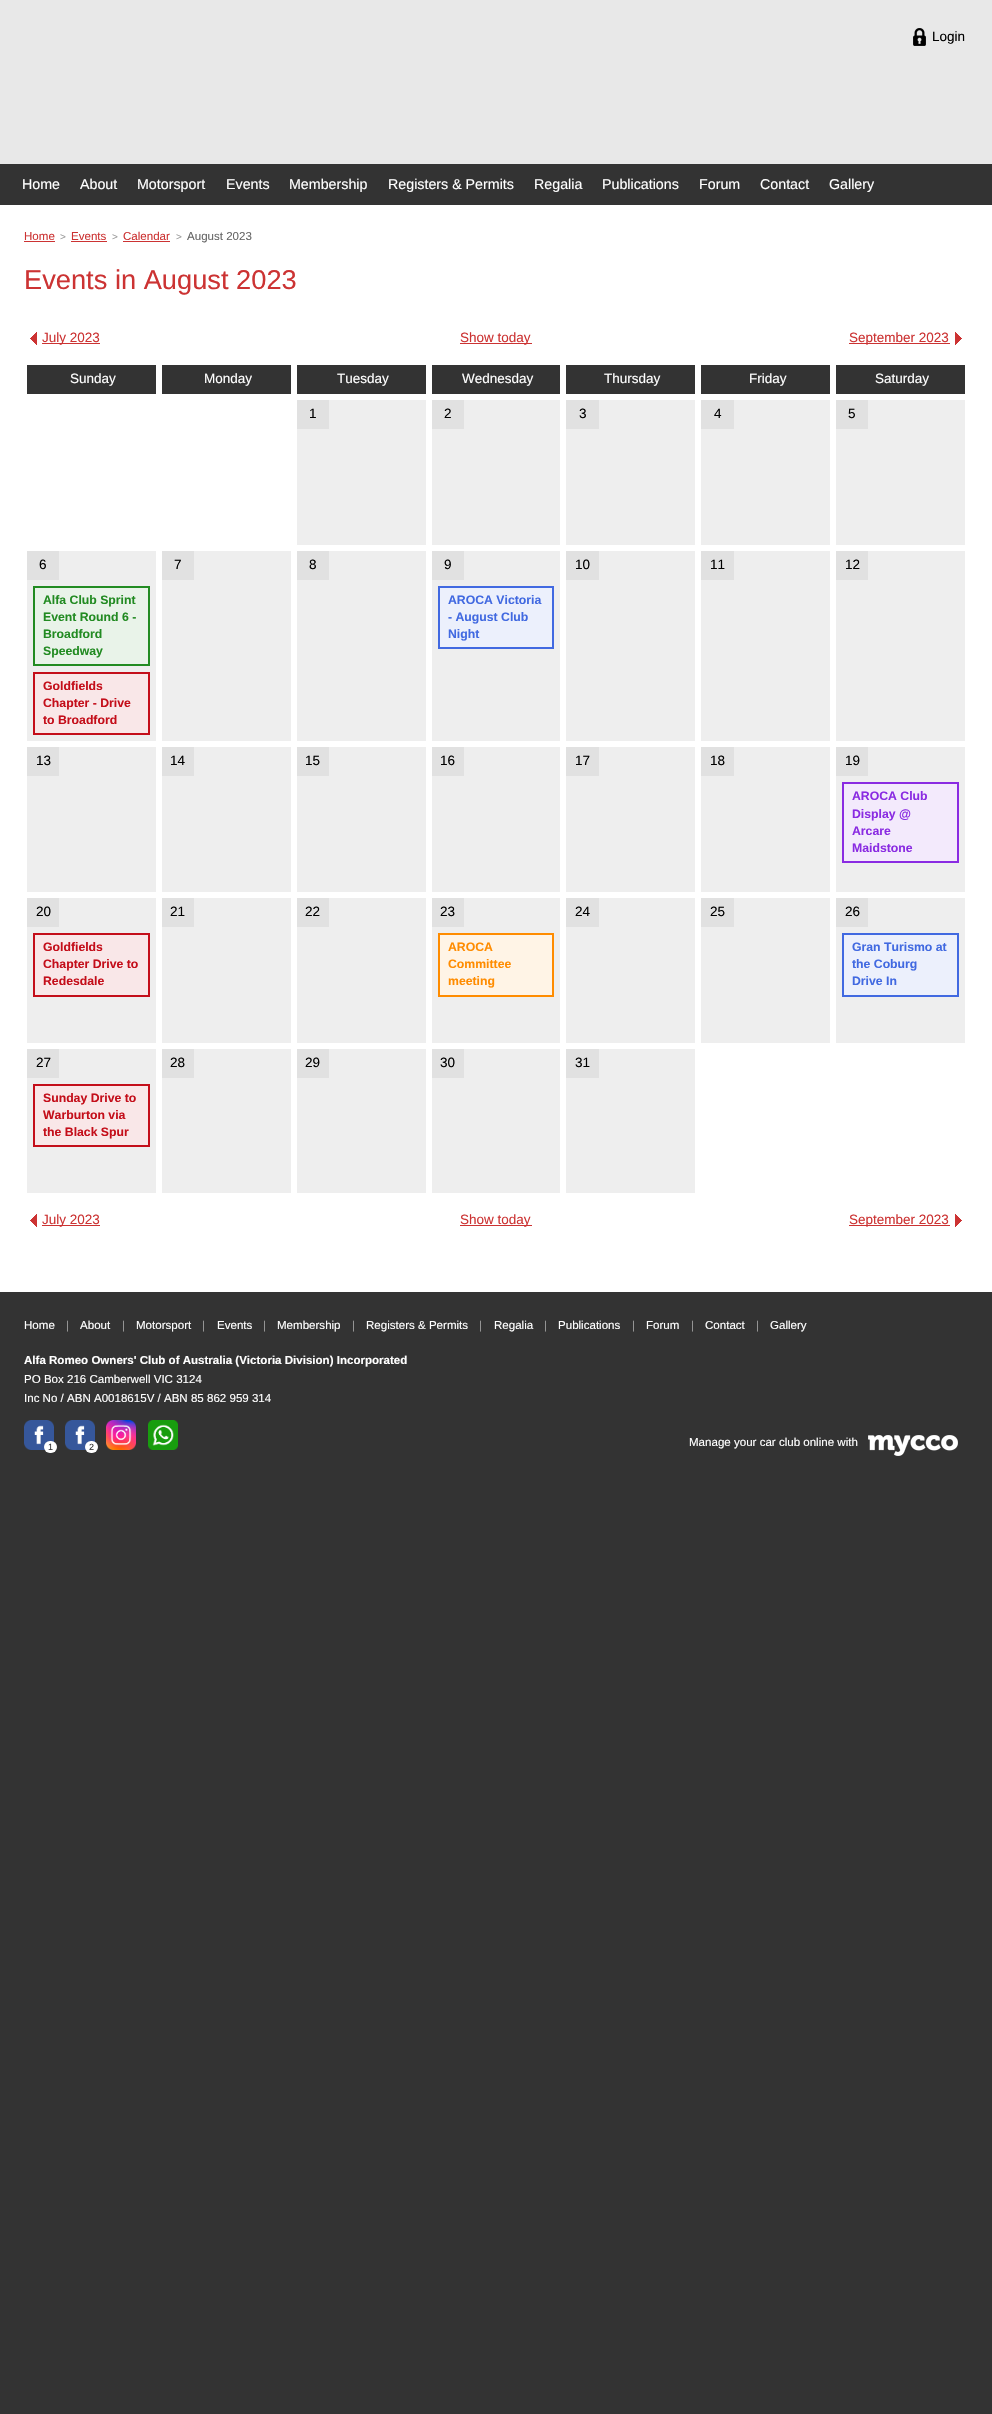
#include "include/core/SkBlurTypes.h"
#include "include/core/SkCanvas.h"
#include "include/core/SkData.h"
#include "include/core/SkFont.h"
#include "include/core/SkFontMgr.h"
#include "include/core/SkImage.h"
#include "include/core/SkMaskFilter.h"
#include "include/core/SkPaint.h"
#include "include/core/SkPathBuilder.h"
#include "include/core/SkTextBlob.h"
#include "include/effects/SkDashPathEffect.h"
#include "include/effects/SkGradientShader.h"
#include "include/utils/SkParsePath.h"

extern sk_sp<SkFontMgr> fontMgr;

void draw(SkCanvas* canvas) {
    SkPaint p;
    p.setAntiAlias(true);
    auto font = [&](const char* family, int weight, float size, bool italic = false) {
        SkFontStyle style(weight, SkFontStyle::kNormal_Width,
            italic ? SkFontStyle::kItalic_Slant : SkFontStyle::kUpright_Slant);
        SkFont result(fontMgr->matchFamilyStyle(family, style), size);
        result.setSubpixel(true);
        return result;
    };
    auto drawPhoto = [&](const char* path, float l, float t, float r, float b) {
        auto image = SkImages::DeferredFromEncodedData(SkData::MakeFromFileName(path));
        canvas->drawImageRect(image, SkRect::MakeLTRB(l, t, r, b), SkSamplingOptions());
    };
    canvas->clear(0xFF333333);
    p.setColor(0xFFE8E8E8);
    canvas->drawRect(SkRect::MakeLTRB(0, 0, 992, 164), p);
    drawPhoto("media/1.png", 913, 28, 926, 46);
    auto font1 = font("Liberation Sans", 400, 13.5f);
    p.setColor(0xFF000000);
    canvas->drawString("Login", 932, 41, font1, p);
    auto font2 = font("Liberation Sans", 400, 14.25f);
    p.setColor(0xFFFFFFFF);
    {
        const struct { const char* s; float x, y; } items[] = {
            {"Home", 22, 189},
            {"About", 80, 189},
            {"Motorsport", 137, 189},
            {"Events", 226, 189},
            {"Membership", 289, 189},
            {"Registers & Permits", 388, 189},
            {"Regalia", 534, 189},
            {"Publications", 602, 189},
            {"Forum", 699, 189},
            {"Contact", 760, 189},
            {"Gallery", 829, 189},
        };
        for (auto [s, x, y] : items) {
            canvas->drawString(s, x, y, font2, p);
        }
    }
    canvas->drawRect(SkRect::MakeLTRB(0, 205, 992, 1292), p);
    auto font3 = font("Liberation Sans", 400, 11.55f);
    p.setColor(0xFFCC3333);
    canvas->drawString("Home", 24, 240, font3, p);
    canvas->drawRect(SkRect::MakeLTRB(24, 241, 55, 242), p);
    auto font4 = font("Liberation Sans", 400, 10);
    p.setColor(0xFF999999);
    canvas->drawString(">", 60, 240, font4, p);
    p.setColor(0xFFCC3333);
    canvas->drawString("Events", 71, 240, font3, p);
    canvas->drawRect(SkRect::MakeLTRB(71, 241, 107, 242), p);
    p.setColor(0xFF999999);
    canvas->drawString(">", 112, 240, font4, p);
    p.setColor(0xFFCC3333);
    canvas->drawString("Calendar", 123, 240, font3, p);
    canvas->drawRect(SkRect::MakeLTRB(123, 241, 170, 242), p);
    p.setColor(0xFF999999);
    canvas->drawString(">", 176, 240, font4, p);
    p.setColor(0xFF666666);
    canvas->drawString("August 2023", 187, 240, font3, p);
    auto font5 = font("Liberation Sans", 400, 27.25f);
    p.setColor(0xFFCC3333);
    canvas->drawString("Events in August 2023", 24, 289, font5, p);
    canvas->drawRect(SkRect::MakeLTRB(30, 332, 37, 345), p);
    drawPhoto("media/2.png", 30, 330, 42, 348);
    canvas->drawRect(SkRect::MakeLTRB(42, 343, 100, 344), p);
    canvas->drawString("July 2023", 42, 342, font1, p);
    canvas->drawRect(SkRect::MakeLTRB(460, 343, 532, 344), p);
    canvas->drawString("Show today", 460, 342, font1, p);
    canvas->drawRect(SkRect::MakeLTRB(849, 343, 950, 344), p);
    canvas->drawString("September 2023", 849, 342, font1, p);
    canvas->drawRect(SkRect::MakeLTRB(955, 332, 962, 345), p);
    drawPhoto("media/3.png", 950, 330, 962, 348);
    p.setColor(0xFF333333);
    canvas->drawRect(SkRect::MakeLTRB(27, 365, 156, 394), p);
    p.setColor(0xFFFFFFFF);
    canvas->drawString("Sunday", 70, 383, font1, p);
    p.setColor(0xFF333333);
    canvas->drawRect(SkRect::MakeLTRB(162, 365, 291, 394), p);
    p.setColor(0xFFFFFFFF);
    canvas->drawString("Monday", 204, 383, font1, p);
    p.setColor(0xFF333333);
    canvas->drawRect(SkRect::MakeLTRB(297, 365, 426, 394), p);
    p.setColor(0xFFFFFFFF);
    canvas->drawString("Tuesday", 337, 383, font1, p);
    p.setColor(0xFF333333);
    canvas->drawRect(SkRect::MakeLTRB(432, 365, 560, 394), p);
    p.setColor(0xFFFFFFFF);
    canvas->drawString("Wednesday", 462, 383, font1, p);
    p.setColor(0xFF333333);
    canvas->drawRect(SkRect::MakeLTRB(566, 365, 695, 394), p);
    p.setColor(0xFFFFFFFF);
    canvas->drawString("Thursday", 604, 383, font1, p);
    p.setColor(0xFF333333);
    canvas->drawRect(SkRect::MakeLTRB(701, 365, 830, 394), p);
    p.setColor(0xFFFFFFFF);
    canvas->drawString("Friday", 749, 383, font1, p);
    p.setColor(0xFF333333);
    canvas->drawRect(SkRect::MakeLTRB(836, 365, 965, 394), p);
    p.setColor(0xFFFFFFFF);
    canvas->drawString("Saturday", 875, 383, font1, p);
    p.setColor(0xFFEEEEEE);
    canvas->drawRect(SkRect::MakeLTRB(297, 400, 426, 545), p);
    p.setColor(0xFFE1E1E1);
    canvas->drawRect(SkRect::MakeLTRB(297, 400, 329, 429), p);
    p.setColor(0xFF000000);
    canvas->drawString("1", 309, 418, font1, p);
    p.setColor(0xFFEEEEEE);
    canvas->drawRect(SkRect::MakeLTRB(432, 400, 560, 545), p);
    p.setColor(0xFFE1E1E1);
    canvas->drawRect(SkRect::MakeLTRB(432, 400, 464, 429), p);
    p.setColor(0xFF000000);
    canvas->drawString("2", 444, 418, font1, p);
    p.setColor(0xFFEEEEEE);
    canvas->drawRect(SkRect::MakeLTRB(566, 400, 695, 545), p);
    p.setColor(0xFFE1E1E1);
    canvas->drawRect(SkRect::MakeLTRB(566, 400, 599, 429), p);
    p.setColor(0xFF000000);
    canvas->drawString("3", 579, 418, font1, p);
    p.setColor(0xFFEEEEEE);
    canvas->drawRect(SkRect::MakeLTRB(701, 400, 830, 545), p);
    p.setColor(0xFFE1E1E1);
    canvas->drawRect(SkRect::MakeLTRB(701, 400, 734, 429), p);
    p.setColor(0xFF000000);
    canvas->drawString("4", 714, 418, font1, p);
    p.setColor(0xFFEEEEEE);
    canvas->drawRect(SkRect::MakeLTRB(836, 400, 965, 545), p);
    p.setColor(0xFFE1E1E1);
    canvas->drawRect(SkRect::MakeLTRB(836, 400, 868, 429), p);
    p.setColor(0xFF000000);
    canvas->drawString("5", 848, 418, font1, p);
    p.setColor(0xFFEEEEEE);
    canvas->drawRect(SkRect::MakeLTRB(27, 551, 156, 741), p);
    p.setColor(0xFFE1E1E1);
    canvas->drawRect(SkRect::MakeLTRB(27, 551, 59, 580), p);
    p.setColor(0xFF000000);
    canvas->drawString("6", 39, 569, font1, p);
    p.setColor(0xFFE9F3E9);
    canvas->drawRect(SkRect::MakeLTRB(34, 587, 149, 665), p);
    p.setStyle(SkPaint::kStroke_Style);
    p.setStrokeWidth(2);
    p.setColor(0xFF228B22);
    canvas->drawRect(SkRect::MakeLTRB(34, 587, 149, 665), p);
    auto font6 = font("Liberation Sans", 700, 12.25f);
    p.setStyle(SkPaint::kFill_Style);
    {
        const struct { const char* s; float x, y; } items[] = {
            {"Alfa Club Sprint", 43, 604},
            {"Event Round 6 -", 43, 621},
            {"Broadford", 43, 638},
            {"Speedway", 43, 655},
        };
        for (auto [s, x, y] : items) {
            canvas->drawString(s, x, y, font6, p);
        }
    }
    p.setColor(0xFFF9E7E8);
    canvas->drawRect(SkRect::MakeLTRB(34, 673, 149, 734), p);
    p.setStyle(SkPaint::kStroke_Style);
    p.setColor(0xFFC40E1A);
    canvas->drawRect(SkRect::MakeLTRB(34, 673, 149, 734), p);
    p.setStyle(SkPaint::kFill_Style);
    {
        const struct { const char* s; float x, y; } items[] = {
            {"Goldfields", 43, 690},
            {"Chapter - Drive", 43, 707},
            {"to Broadford", 43, 724},
        };
        for (auto [s, x, y] : items) {
            canvas->drawString(s, x, y, font6, p);
        }
    }
    p.setColor(0xFFEEEEEE);
    canvas->drawRect(SkRect::MakeLTRB(162, 551, 291, 741), p);
    p.setColor(0xFFE1E1E1);
    canvas->drawRect(SkRect::MakeLTRB(162, 551, 194, 580), p);
    p.setColor(0xFF000000);
    canvas->drawString("7", 174, 569, font1, p);
    p.setColor(0xFFEEEEEE);
    canvas->drawRect(SkRect::MakeLTRB(297, 551, 426, 741), p);
    p.setColor(0xFFE1E1E1);
    canvas->drawRect(SkRect::MakeLTRB(297, 551, 329, 580), p);
    p.setColor(0xFF000000);
    canvas->drawString("8", 309, 569, font1, p);
    p.setColor(0xFFEEEEEE);
    canvas->drawRect(SkRect::MakeLTRB(432, 551, 560, 741), p);
    p.setColor(0xFFE1E1E1);
    canvas->drawRect(SkRect::MakeLTRB(432, 551, 464, 580), p);
    p.setColor(0xFF000000);
    canvas->drawString("9", 444, 569, font1, p);
    p.setColor(0xFFECF0FC);
    canvas->drawRect(SkRect::MakeLTRB(439, 587, 553, 648), p);
    p.setStyle(SkPaint::kStroke_Style);
    p.setColor(0xFF4169E1);
    canvas->drawRect(SkRect::MakeLTRB(439, 587, 553, 648), p);
    p.setStyle(SkPaint::kFill_Style);
    {
        const struct { const char* s; float x, y; } items[] = {
            {"AROCA Victoria", 448, 604},
            {"- August Club", 448, 621},
            {"Night", 448, 638},
        };
        for (auto [s, x, y] : items) {
            canvas->drawString(s, x, y, font6, p);
        }
    }
    p.setColor(0xFFEEEEEE);
    canvas->drawRect(SkRect::MakeLTRB(566, 551, 695, 741), p);
    p.setColor(0xFFE1E1E1);
    canvas->drawRect(SkRect::MakeLTRB(566, 551, 599, 580), p);
    p.setColor(0xFF000000);
    canvas->drawString("10", 575, 569, font1, p);
    p.setColor(0xFFEEEEEE);
    canvas->drawRect(SkRect::MakeLTRB(701, 551, 830, 741), p);
    p.setColor(0xFFE1E1E1);
    canvas->drawRect(SkRect::MakeLTRB(701, 551, 734, 580), p);
    p.setColor(0xFF000000);
    canvas->drawString("11", 710, 569, font1, p);
    p.setColor(0xFFEEEEEE);
    canvas->drawRect(SkRect::MakeLTRB(836, 551, 965, 741), p);
    p.setColor(0xFFE1E1E1);
    canvas->drawRect(SkRect::MakeLTRB(836, 551, 868, 580), p);
    p.setColor(0xFF000000);
    canvas->drawString("12", 845, 569, font1, p);
    p.setColor(0xFFEEEEEE);
    canvas->drawRect(SkRect::MakeLTRB(27, 747, 156, 892), p);
    p.setColor(0xFFE1E1E1);
    canvas->drawRect(SkRect::MakeLTRB(27, 747, 59, 776), p);
    p.setColor(0xFF000000);
    canvas->drawString("13", 36, 765, font1, p);
    p.setColor(0xFFEEEEEE);
    canvas->drawRect(SkRect::MakeLTRB(162, 747, 291, 892), p);
    p.setColor(0xFFE1E1E1);
    canvas->drawRect(SkRect::MakeLTRB(162, 747, 194, 776), p);
    p.setColor(0xFF000000);
    canvas->drawString("14", 170, 765, font1, p);
    p.setColor(0xFFEEEEEE);
    canvas->drawRect(SkRect::MakeLTRB(297, 747, 426, 892), p);
    p.setColor(0xFFE1E1E1);
    canvas->drawRect(SkRect::MakeLTRB(297, 747, 329, 776), p);
    p.setColor(0xFF000000);
    canvas->drawString("15", 305, 765, font1, p);
    p.setColor(0xFFEEEEEE);
    canvas->drawRect(SkRect::MakeLTRB(432, 747, 560, 892), p);
    p.setColor(0xFFE1E1E1);
    canvas->drawRect(SkRect::MakeLTRB(432, 747, 464, 776), p);
    p.setColor(0xFF000000);
    canvas->drawString("16", 440, 765, font1, p);
    p.setColor(0xFFEEEEEE);
    canvas->drawRect(SkRect::MakeLTRB(566, 747, 695, 892), p);
    p.setColor(0xFFE1E1E1);
    canvas->drawRect(SkRect::MakeLTRB(566, 747, 599, 776), p);
    p.setColor(0xFF000000);
    canvas->drawString("17", 575, 765, font1, p);
    p.setColor(0xFFEEEEEE);
    canvas->drawRect(SkRect::MakeLTRB(701, 747, 830, 892), p);
    p.setColor(0xFFE1E1E1);
    canvas->drawRect(SkRect::MakeLTRB(701, 747, 734, 776), p);
    p.setColor(0xFF000000);
    canvas->drawString("18", 710, 765, font1, p);
    p.setColor(0xFFEEEEEE);
    canvas->drawRect(SkRect::MakeLTRB(836, 747, 965, 892), p);
    p.setColor(0xFFE1E1E1);
    canvas->drawRect(SkRect::MakeLTRB(836, 747, 868, 776), p);
    p.setColor(0xFF000000);
    canvas->drawString("19", 845, 765, font1, p);
    p.setColor(0xFFF3EAFC);
    canvas->drawRect(SkRect::MakeLTRB(843, 783, 958, 862), p);
    p.setStyle(SkPaint::kStroke_Style);
    p.setColor(0xFF8A2BE2);
    canvas->drawRect(SkRect::MakeLTRB(843, 783, 958, 862), p);
    p.setStyle(SkPaint::kFill_Style);
    {
        const struct { const char* s; float x, y; } items[] = {
            {"AROCA Club", 852, 800},
            {"Display @", 852, 818},
            {"Arcare", 852, 835},
            {"Maidstone", 852, 852},
        };
        for (auto [s, x, y] : items) {
            canvas->drawString(s, x, y, font6, p);
        }
    }
    p.setColor(0xFFEEEEEE);
    canvas->drawRect(SkRect::MakeLTRB(27, 898, 156, 1043), p);
    p.setColor(0xFFE1E1E1);
    canvas->drawRect(SkRect::MakeLTRB(27, 898, 59, 927), p);
    p.setColor(0xFF000000);
    canvas->drawString("20", 36, 916, font1, p);
    p.setColor(0xFFF9E7E8);
    canvas->drawRect(SkRect::MakeLTRB(34, 934, 149, 996), p);
    p.setStyle(SkPaint::kStroke_Style);
    p.setColor(0xFFC40E1A);
    canvas->drawRect(SkRect::MakeLTRB(34, 934, 149, 996), p);
    p.setStyle(SkPaint::kFill_Style);
    {
        const struct { const char* s; float x, y; } items[] = {
            {"Goldfields", 43, 951},
            {"Chapter Drive to", 43, 968},
            {"Redesdale", 43, 985},
        };
        for (auto [s, x, y] : items) {
            canvas->drawString(s, x, y, font6, p);
        }
    }
    p.setColor(0xFFEEEEEE);
    canvas->drawRect(SkRect::MakeLTRB(162, 898, 291, 1043), p);
    p.setColor(0xFFE1E1E1);
    canvas->drawRect(SkRect::MakeLTRB(162, 898, 194, 927), p);
    p.setColor(0xFF000000);
    canvas->drawString("21", 170, 916, font1, p);
    p.setColor(0xFFEEEEEE);
    canvas->drawRect(SkRect::MakeLTRB(297, 898, 426, 1043), p);
    p.setColor(0xFFE1E1E1);
    canvas->drawRect(SkRect::MakeLTRB(297, 898, 329, 927), p);
    p.setColor(0xFF000000);
    canvas->drawString("22", 305, 916, font1, p);
    p.setColor(0xFFEEEEEE);
    canvas->drawRect(SkRect::MakeLTRB(432, 898, 560, 1043), p);
    p.setColor(0xFFE1E1E1);
    canvas->drawRect(SkRect::MakeLTRB(432, 898, 464, 927), p);
    p.setColor(0xFF000000);
    canvas->drawString("23", 440, 916, font1, p);
    p.setColor(0xFFFFF4E6);
    canvas->drawRect(SkRect::MakeLTRB(439, 934, 553, 996), p);
    p.setStyle(SkPaint::kStroke_Style);
    p.setColor(0xFFFF8C00);
    canvas->drawRect(SkRect::MakeLTRB(439, 934, 553, 996), p);
    p.setStyle(SkPaint::kFill_Style);
    {
        const struct { const char* s; float x, y; } items[] = {
            {"AROCA", 448, 951},
            {"Committee", 448, 968},
            {"meeting", 448, 985},
        };
        for (auto [s, x, y] : items) {
            canvas->drawString(s, x, y, font6, p);
        }
    }
    p.setColor(0xFFEEEEEE);
    canvas->drawRect(SkRect::MakeLTRB(566, 898, 695, 1043), p);
    p.setColor(0xFFE1E1E1);
    canvas->drawRect(SkRect::MakeLTRB(566, 898, 599, 927), p);
    p.setColor(0xFF000000);
    canvas->drawString("24", 575, 916, font1, p);
    p.setColor(0xFFEEEEEE);
    canvas->drawRect(SkRect::MakeLTRB(701, 898, 830, 1043), p);
    p.setColor(0xFFE1E1E1);
    canvas->drawRect(SkRect::MakeLTRB(701, 898, 734, 927), p);
    p.setColor(0xFF000000);
    canvas->drawString("25", 710, 916, font1, p);
    p.setColor(0xFFEEEEEE);
    canvas->drawRect(SkRect::MakeLTRB(836, 898, 965, 1043), p);
    p.setColor(0xFFE1E1E1);
    canvas->drawRect(SkRect::MakeLTRB(836, 898, 868, 927), p);
    p.setColor(0xFF000000);
    canvas->drawString("26", 845, 916, font1, p);
    p.setColor(0xFFECF0FC);
    canvas->drawRect(SkRect::MakeLTRB(843, 934, 958, 996), p);
    p.setStyle(SkPaint::kStroke_Style);
    p.setColor(0xFF4169E1);
    canvas->drawRect(SkRect::MakeLTRB(843, 934, 958, 996), p);
    p.setStyle(SkPaint::kFill_Style);
    {
        const struct { const char* s; float x, y; } items[] = {
            {"Gran Turismo at", 852, 951},
            {"the Coburg", 852, 968},
            {"Drive In", 852, 985},
        };
        for (auto [s, x, y] : items) {
            canvas->drawString(s, x, y, font6, p);
        }
    }
    p.setColor(0xFFEEEEEE);
    canvas->drawRect(SkRect::MakeLTRB(27, 1049, 156, 1193), p);
    p.setColor(0xFFE1E1E1);
    canvas->drawRect(SkRect::MakeLTRB(27, 1049, 59, 1078), p);
    p.setColor(0xFF000000);
    canvas->drawString("27", 36, 1067, font1, p);
    p.setColor(0xFFF9E7E8);
    canvas->drawRect(SkRect::MakeLTRB(34, 1085, 149, 1146), p);
    p.setStyle(SkPaint::kStroke_Style);
    p.setColor(0xFFC40E1A);
    canvas->drawRect(SkRect::MakeLTRB(34, 1085, 149, 1146), p);
    p.setStyle(SkPaint::kFill_Style);
    {
        const struct { const char* s; float x, y; } items[] = {
            {"Sunday Drive to", 43, 1102},
            {"Warburton via", 43, 1119},
            {"the Black Spur", 43, 1136},
        };
        for (auto [s, x, y] : items) {
            canvas->drawString(s, x, y, font6, p);
        }
    }
    p.setColor(0xFFEEEEEE);
    canvas->drawRect(SkRect::MakeLTRB(162, 1049, 291, 1193), p);
    p.setColor(0xFFE1E1E1);
    canvas->drawRect(SkRect::MakeLTRB(162, 1049, 194, 1078), p);
    p.setColor(0xFF000000);
    canvas->drawString("28", 170, 1067, font1, p);
    p.setColor(0xFFEEEEEE);
    canvas->drawRect(SkRect::MakeLTRB(297, 1049, 426, 1193), p);
    p.setColor(0xFFE1E1E1);
    canvas->drawRect(SkRect::MakeLTRB(297, 1049, 329, 1078), p);
    p.setColor(0xFF000000);
    canvas->drawString("29", 305, 1067, font1, p);
    p.setColor(0xFFEEEEEE);
    canvas->drawRect(SkRect::MakeLTRB(432, 1049, 560, 1193), p);
    p.setColor(0xFFE1E1E1);
    canvas->drawRect(SkRect::MakeLTRB(432, 1049, 464, 1078), p);
    p.setColor(0xFF000000);
    canvas->drawString("30", 440, 1067, font1, p);
    p.setColor(0xFFEEEEEE);
    canvas->drawRect(SkRect::MakeLTRB(566, 1049, 695, 1193), p);
    p.setColor(0xFFE1E1E1);
    canvas->drawRect(SkRect::MakeLTRB(566, 1049, 599, 1078), p);
    p.setColor(0xFF000000);
    canvas->drawString("31", 575, 1067, font1, p);
    p.setColor(0xFFCC3333);
    canvas->drawRect(SkRect::MakeLTRB(30, 1214, 37, 1227), p);
    drawPhoto("media/2.png", 30, 1212, 42, 1230);
    canvas->drawRect(SkRect::MakeLTRB(42, 1225, 100, 1226), p);
    canvas->drawString("July 2023", 42, 1224, font1, p);
    canvas->drawRect(SkRect::MakeLTRB(460, 1225, 532, 1226), p);
    canvas->drawString("Show today", 460, 1224, font1, p);
    canvas->drawRect(SkRect::MakeLTRB(849, 1225, 950, 1226), p);
    canvas->drawString("September 2023", 849, 1224, font1, p);
    canvas->drawRect(SkRect::MakeLTRB(955, 1214, 962, 1227), p);
    drawPhoto("media/3.png", 950, 1212, 962, 1230);
    p.setColor(0xFFFFFFFF);
    canvas->drawString("Home", 24, 1329, font3, p);
    p.setColor(0xFF999999);
    canvas->drawString("|", 66, 1329, font3, p);
    p.setColor(0xFFFFFFFF);
    canvas->drawString("About", 80, 1329, font3, p);
    p.setColor(0xFF999999);
    canvas->drawString("|", 122, 1329, font3, p);
    p.setColor(0xFFFFFFFF);
    canvas->drawString("Motorsport", 136, 1329, font3, p);
    p.setColor(0xFF999999);
    canvas->drawString("|", 202, 1329, font3, p);
    p.setColor(0xFFFFFFFF);
    canvas->drawString("Events", 217, 1329, font3, p);
    p.setColor(0xFF999999);
    canvas->drawString("|", 263, 1329, font3, p);
    p.setColor(0xFFFFFFFF);
    canvas->drawString("Membership", 277, 1329, font3, p);
    p.setColor(0xFF999999);
    canvas->drawString("|", 352, 1329, font3, p);
    p.setColor(0xFFFFFFFF);
    canvas->drawString("Registers & Permits", 366, 1329, font3, p);
    p.setColor(0xFF999999);
    canvas->drawString("|", 479, 1329, font3, p);
    p.setColor(0xFFFFFFFF);
    canvas->drawString("Regalia", 494, 1329, font3, p);
    p.setColor(0xFF999999);
    canvas->drawString("|", 544, 1329, font3, p);
    p.setColor(0xFFFFFFFF);
    canvas->drawString("Publications", 558, 1329, font3, p);
    p.setColor(0xFF999999);
    canvas->drawString("|", 632, 1329, font3, p);
    p.setColor(0xFFFFFFFF);
    canvas->drawString("Forum", 646, 1329, font3, p);
    p.setColor(0xFF999999);
    canvas->drawString("|", 691, 1329, font3, p);
    p.setColor(0xFFFFFFFF);
    canvas->drawString("Contact", 705, 1329, font3, p);
    p.setColor(0xFF999999);
    canvas->drawString("|", 756, 1329, font3, p);
    p.setColor(0xFFFFFFFF);
    canvas->drawString("Gallery", 770, 1329, font3, p);
    auto font7 = font("Liberation Sans", 700, 11.55f);
    canvas->drawString("Alfa Romeo Owners' Club of Australia (Victoria Division) Incorporated", 24, 1364, font7, p);
    canvas->drawString("PO Box 216 Camberwell VIC 3124", 24, 1383, font3, p);
    canvas->drawString("Inc No / ABN A0018615V / ABN 85 862 959 314", 24, 1402, font3, p);
    drawPhoto("media/4.png", 24, 1420, 54, 1450);
    canvas->drawRoundRect(SkRect::MakeLTRB(44, 1441, 57, 1453), 6, 6, p);
    auto font8 = font("Liberation Sans", 400, 9);
    p.setColor(0xFF333333);
    canvas->drawString("1", 48, 1450, font8, p);
    drawPhoto("media/4.png", 65, 1420, 95, 1450);
    p.setColor(0xFFFFFFFF);
    canvas->drawRoundRect(SkRect::MakeLTRB(85, 1441, 98, 1453), 6, 6, p);
    p.setColor(0xFF333333);
    canvas->drawString("2", 89, 1450, font8, p);
    drawPhoto("media/5.png", 106, 1420, 136, 1450);
    drawPhoto("media/6.png", 148, 1420, 178, 1450);
    p.setColor(0xFFFFFFFF);
    canvas->drawString("Manage your car club online with", 689, 1446, font3, p);
    drawPhoto("media/7.png", 868, 1435, 958, 1456);
}
